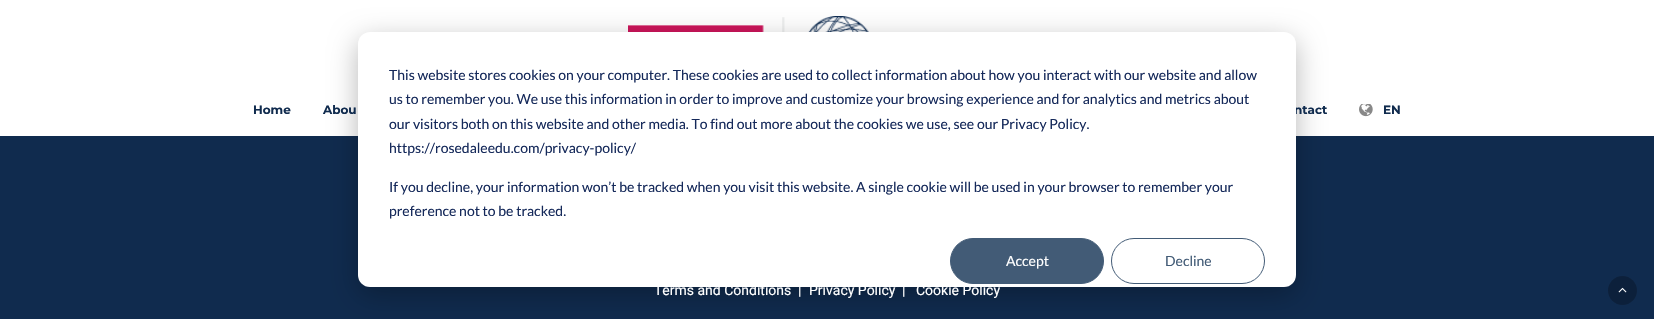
#include "include/core/SkBlurTypes.h"
#include "include/core/SkCanvas.h"
#include "include/core/SkData.h"
#include "include/core/SkFont.h"
#include "include/core/SkFontMgr.h"
#include "include/core/SkImage.h"
#include "include/core/SkMaskFilter.h"
#include "include/core/SkPaint.h"
#include "include/core/SkPathBuilder.h"
#include "include/core/SkTextBlob.h"
#include "include/effects/SkDashPathEffect.h"
#include "include/effects/SkGradientShader.h"
#include "include/utils/SkParsePath.h"

extern sk_sp<SkFontMgr> fontMgr;

void draw(SkCanvas* canvas) {
    SkPaint p;
    p.setAntiAlias(true);
    auto font = [&](const char* family, int weight, float size, bool italic = false) {
        SkFontStyle style(weight, SkFontStyle::kNormal_Width,
            italic ? SkFontStyle::kItalic_Slant : SkFontStyle::kUpright_Slant);
        SkFont result(fontMgr->matchFamilyStyle(family, style), size);
        result.setSubpixel(true);
        return result;
    };
    auto drawPhoto = [&](const char* path, float l, float t, float r, float b) {
        auto image = SkImages::DeferredFromEncodedData(SkData::MakeFromFileName(path));
        canvas->drawImageRect(image, SkRect::MakeLTRB(l, t, r, b), SkSamplingOptions());
    };
    canvas->clear(0xFF102B4E);
    p.setColor(0xFFFFFFFF);
    canvas->drawRect(SkRect::MakeLTRB(0, 0, 1654, 136), p);
    drawPhoto("media/1.png", 628, 16, 869, 32);
    p.setColor(0x47000000);
    p.setMaskFilter(SkMaskFilter::MakeBlur(kNormal_SkBlurStyle, 14));
    canvas->drawRoundRect(SkRect::MakeLTRB(358, 40, 1296, 295), 12, 12, p);
    p.setMaskFilter(nullptr);
    auto font1 = font("Montserrat", 700, 12);
    p.setColor(0xFF102B4E);
    canvas->drawString("ntact", 1294, 114, font1, p);
    p.setColor(0xFFFFFFFF);
    canvas->drawRoundRect(SkRect::MakeLTRB(358, 32, 1296, 287), 12, 12, p);
    auto font2 = font("Lato", 400, 14);
    p.setColor(0xFF15295A);
    {
        const struct { const char* s; float x, y; } items[] = {
            {"This website stores cookies on your computer. These cookies are used to collect information about how you interact with our website and allow", 389, 80},
            {"us to remember you. We use this information in order to improve and customize your browsing experience and for analytics and metrics about", 389, 104},
            {"our visitors both on this website and other media. To find out more about the cookies we use, see our Privacy Policy.", 389, 129},
            {"https://rosedaleedu.com/privacy-policy/", 389, 153},
            {"If you decline, your information won’t be tracked when you visit this website. A single cookie will be used in your browser to remember your", 389, 192},
            {"preference not to be tracked.", 389, 216},
        };
        for (auto [s, x, y] : items) {
            canvas->drawString(s, x, y, font2, p);
        }
    }
    p.setColor(0xFF425B76);
    canvas->drawRoundRect(SkRect::MakeLTRB(950.5f, 238.5f, 1103.5f, 283.5f), 22.5f, 22.5f, p);
    p.setStyle(SkPaint::kStroke_Style);
    p.setStrokeWidth(1);
    canvas->drawRoundRect(SkRect::MakeLTRB(950.5f, 238.5f, 1103.5f, 283.5f), 22.5f, 22.5f, p);
    p.setStyle(SkPaint::kFill_Style);
    p.setColor(0xFFFFFFFF);
    canvas->drawString("Accept", 1006, 266, font2, p);
    p.setStyle(SkPaint::kStroke_Style);
    p.setColor(0xFF425B76);
    canvas->drawRoundRect(SkRect::MakeLTRB(1111.5f, 238.5f, 1264.5f, 283.5f), 22.5f, 22.5f, p);
    p.setStyle(SkPaint::kFill_Style);
    canvas->drawString("Decline", 1165, 266, font2, p);
    p.setColor(0xFF102B4E);
    canvas->drawString("Home", 253, 114, font1, p);
    canvas->drawString("Abou", 323, 114, font1, p);
    drawPhoto("media/2.png", 1359, 104, 1373, 117);
    canvas->drawString("EN", 1383, 114, font1, p);
    auto font3 = font("Roboto", 400, 14);
    p.setColor(0xFFFFFFFF);
    {
        const struct { const char* s; float x, y; } items[] = {
            {"Terms and Conditions", 654, 295},
            {"|", 798, 295},
            {"Privacy Policy", 809, 295},
            {"|", 902, 295},
            {"Cookie Policy", 916, 295},
        };
        for (auto [s, x, y] : items) {
            canvas->drawString(s, x, y, font3, p);
        }
    }
    p.setColor(0xFF0C203B);
    canvas->drawCircle(1622.5f, 290.5f, 14.5f, p);
    drawPhoto("media/3.png", 1618, 287, 1627, 293);
}
